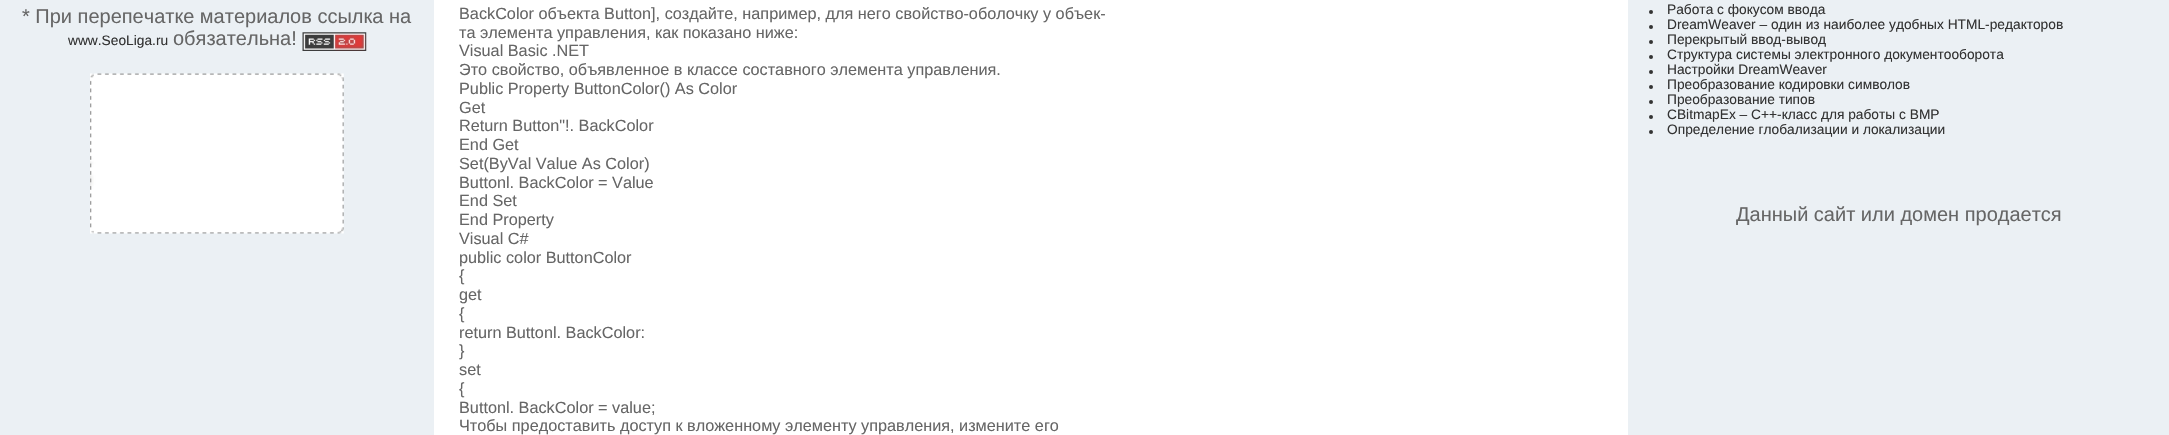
#include "include/core/SkBlurTypes.h"
#include "include/core/SkCanvas.h"
#include "include/core/SkData.h"
#include "include/core/SkFont.h"
#include "include/core/SkFontMgr.h"
#include "include/core/SkImage.h"
#include "include/core/SkMaskFilter.h"
#include "include/core/SkPaint.h"
#include "include/core/SkPathBuilder.h"
#include "include/core/SkTextBlob.h"
#include "include/effects/SkDashPathEffect.h"
#include "include/effects/SkGradientShader.h"
#include "include/utils/SkParsePath.h"

extern sk_sp<SkFontMgr> fontMgr;

void draw(SkCanvas* canvas) {
    SkPaint p;
    p.setAntiAlias(true);
    auto font = [&](const char* family, int weight, float size, bool italic = false) {
        SkFontStyle style(weight, SkFontStyle::kNormal_Width,
            italic ? SkFontStyle::kItalic_Slant : SkFontStyle::kUpright_Slant);
        SkFont result(fontMgr->matchFamilyStyle(family, style), size);
        result.setSubpixel(true);
        return result;
    };
    auto drawPhoto = [&](const char* path, float l, float t, float r, float b) {
        auto image = SkImages::DeferredFromEncodedData(SkData::MakeFromFileName(path));
        canvas->drawImageRect(image, SkRect::MakeLTRB(l, t, r, b), SkSamplingOptions());
    };
    canvas->clear(0xFFFFFFFF);
    p.setColor(0xFFEBF0F4);
    canvas->drawRect(SkRect::MakeLTRB(0, 0, 434, 435), p);
    auto font1 = font("Liberation Sans", 400, 20);
    p.setColor(0xFF666666);
    canvas->drawString("* При перепечатке материалов ссылка на", 22, 23, font1, p);
    auto font2 = font("Liberation Sans", 400, 13.75f);
    p.setColor(0xFF333333);
    canvas->drawString("www.SeoLiga.ru", 68, 45, font2, p);
    p.setColor(0xFF666666);
    canvas->drawString("обязательна!", 173, 45, font1, p);
    drawPhoto("media/1.png", 302, 32, 367, 51);
    drawPhoto("media/2.png", 90, 73, 344, 234);
    auto font3 = font("Liberation Sans", 400, 16.25f);
    {
        const struct { const char* s; float x, y; } items[] = {
            {"BackColor объекта Button], создайте, например, для него свойство-оболочку у объек-", 459, 19},
            {"та элемента управления, как показано ниже:", 459, 38},
            {"Visual Basic .NET", 459, 56},
            {"Это свойство, объявленное в классе составного элемента управления.", 459, 75},
            {"Public Property ButtonColor() As Color", 459, 94},
            {"Get", 459, 113},
            {"Return Button\"!. BackColor", 459, 131},
            {"End Get", 459, 150},
            {"Set(ByVal Value As Color)", 459, 169},
            {"Buttonl. BackColor = Value", 459, 188},
            {"End Set", 459, 206},
            {"End Property", 459, 225},
            {"Visual C#", 459, 244},
            {"public color ButtonColor", 459, 263},
            {"{", 459, 281},
            {"get", 459, 300},
            {"{", 459, 319},
            {"return Buttonl. BackColor:", 459, 338},
            {"}", 459, 356},
            {"set", 459, 375},
            {"{", 459, 394},
            {"Buttonl. BackColor = value;", 459, 413},
            {"Чтобы предоставить доступ к вложенному элементу управления, измените его", 459, 431},
        };
        for (auto [s, x, y] : items) {
            canvas->drawString(s, x, y, font3, p);
        }
    }
    p.setColor(0xFFEBF0F4);
    canvas->drawRect(SkRect::MakeLTRB(1628, 0, 2169, 435), p);
    p.setColor(0xFF333333);
    canvas->drawCircle(1651, 12, 2, p);
    canvas->drawString("Работа с фокусом ввода", 1667, 14, font2, p);
    canvas->drawCircle(1651, 27, 2, p);
    canvas->drawString("DreamWeaver – один из наиболее удобных HTML-редакторов", 1667, 29, font2, p);
    canvas->drawCircle(1651, 42, 2, p);
    canvas->drawString("Перекрытый ввод-вывод", 1667, 44, font2, p);
    canvas->drawCircle(1651, 57, 2, p);
    canvas->drawString("Структура системы электронного документооборота", 1667, 59, font2, p);
    canvas->drawCircle(1651, 72, 2, p);
    canvas->drawString("Настройки DreamWeaver", 1667, 74, font2, p);
    canvas->drawCircle(1651, 87, 2, p);
    canvas->drawString("Преобразование кодировки символов", 1667, 89, font2, p);
    canvas->drawCircle(1651, 102, 2, p);
    canvas->drawString("Преобразование типов", 1667, 104, font2, p);
    canvas->drawCircle(1651, 117, 2, p);
    canvas->drawString("CBitmapEx – C++-класс для работы с BMP", 1667, 119, font2, p);
    canvas->drawCircle(1651, 132, 2, p);
    canvas->drawString("Определение глобализации и локализации", 1667, 134, font2, p);
    p.setColor(0xFF666666);
    canvas->drawString("Данный сайт или домен продается", 1736, 221, font1, p);
}
